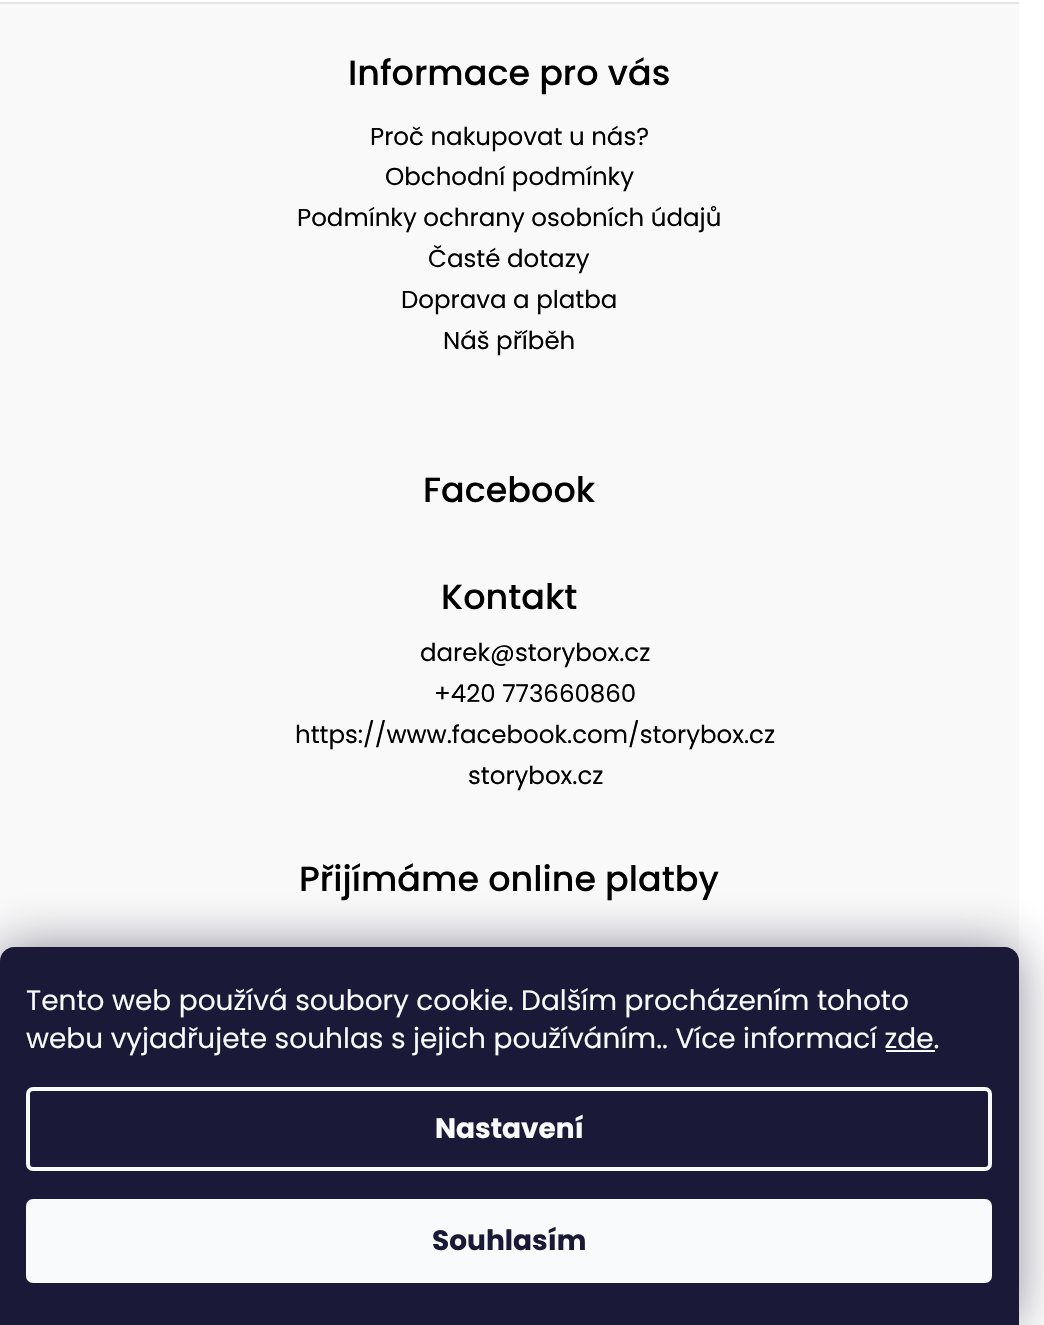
#include "include/core/SkBlurTypes.h"
#include "include/core/SkCanvas.h"
#include "include/core/SkData.h"
#include "include/core/SkFont.h"
#include "include/core/SkFontMgr.h"
#include "include/core/SkImage.h"
#include "include/core/SkMaskFilter.h"
#include "include/core/SkPaint.h"
#include "include/core/SkPathBuilder.h"
#include "include/core/SkTextBlob.h"
#include "include/effects/SkDashPathEffect.h"
#include "include/effects/SkGradientShader.h"
#include "include/utils/SkParsePath.h"

extern sk_sp<SkFontMgr> fontMgr;

void draw(SkCanvas* canvas) {
    SkPaint p;
    p.setAntiAlias(true);
    auto font = [&](const char* family, int weight, float size, bool italic = false) {
        SkFontStyle style(weight, SkFontStyle::kNormal_Width,
            italic ? SkFontStyle::kItalic_Slant : SkFontStyle::kUpright_Slant);
        SkFont result(fontMgr->matchFamilyStyle(family, style), size);
        result.setSubpixel(true);
        return result;
    };
    canvas->clear(0xFFFFFFFF);
    p.setColor(0xFFF9F9F9);
    canvas->drawRect(SkRect::MakeLTRB(0, 4, 1019, 961), p);
    p.setColor(0xFFE6E6E6);
    canvas->drawRect(SkRect::MakeLTRB(0, 2, 1019, 4), p);
    auto font1 = font("Poppins", 500, 35);
    p.setColor(0xFF000000);
    canvas->drawString("Informace pro vás", 348, 85, font1, p);
    auto font2 = font("Poppins", 400, 24.5f);
    {
        const struct { const char* s; float x, y; } items[] = {
            {"Proč nakupovat u nás?", 370, 145},
            {"Obchodní podmínky", 385, 185},
            {"Podmínky ochrany osobních údajů", 297, 226},
            {"Časté dotazy", 428, 267},
            {"Doprava a platba", 401, 308},
            {"Náš příběh", 443, 349},
        };
        for (auto [s, x, y] : items) {
            canvas->drawString(s, x, y, font2, p);
        }
    }
    canvas->drawString("Facebook", 423, 502, font1, p);
    canvas->drawString("Kontakt", 441, 609, font1, p);
    {
        const struct { const char* s; float x, y; } items[] = {
            {"darek@storybox.cz", 420, 661},
            {"+420 773660860", 434, 702},
            {"https://www.facebook.com/storybox.cz", 295, 743},
            {"storybox.cz", 468, 784},
        };
        for (auto [s, x, y] : items) {
            canvas->drawString(s, x, y, font2, p);
        }
    }
    canvas->drawString("Přijímáme online platby", 299, 891, font1, p);
    p.setColor(0x801B1939);
    p.setMaskFilter(SkMaskFilter::MakeBlur(kNormal_SkBlurStyle, 26));
    canvas->drawRoundRect(SkRect::MakeLTRB(0, 947, 1019, 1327), 14, 14, p);
    p.setMaskFilter(nullptr);
    p.setColor(0xFF1A1937);
    canvas->drawPath(SkPathBuilder().moveTo(14, 947).lineTo(1005, 947).cubicTo(1012.5f, 947, 1019, 953.5f, 1019, 961).lineTo(1019, 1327).lineTo(0, 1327).lineTo(0, 961).cubicTo(0, 953.5f, 6.5f, 947, 14, 947).close().detach(), p);
    auto font3 = font("Poppins", 400, 28);
    p.setColor(0xFFF8FAFB);
    canvas->drawString("Tento web používá soubory cookie. Dalším procházením tohoto", 26, 1010, font3, p);
    canvas->drawString("webu vyjadřujete souhlas s jejich používáním.. Více informací zde.", 26, 1048, font3, p);
    canvas->drawRect(SkRect::MakeLTRB(886, 1050, 935, 1052), p);
    p.setStyle(SkPaint::kStroke_Style);
    p.setStrokeWidth(4);
    canvas->drawRoundRect(SkRect::MakeLTRB(28, 1089, 990, 1169), 5, 5, p);
    auto font4 = font("Poppins", 700, 28);
    p.setStyle(SkPaint::kFill_Style);
    canvas->drawString("Nastavení", 435, 1138, font4, p);
    canvas->drawRoundRect(SkRect::MakeLTRB(26, 1199, 992, 1283), 7, 7, p);
    p.setColor(0xFF1A1937);
    canvas->drawString("Souhlasím", 432, 1250, font4, p);
}
